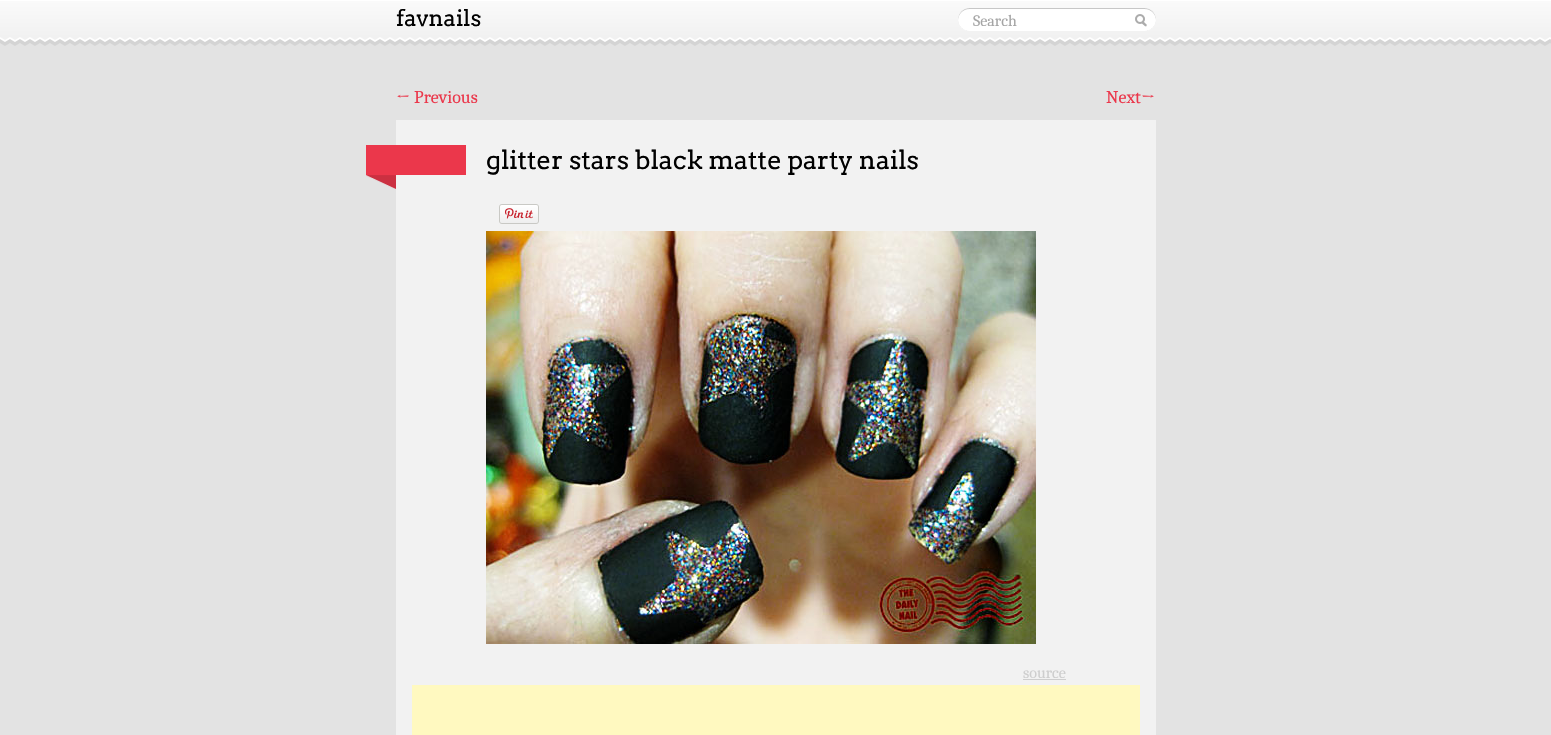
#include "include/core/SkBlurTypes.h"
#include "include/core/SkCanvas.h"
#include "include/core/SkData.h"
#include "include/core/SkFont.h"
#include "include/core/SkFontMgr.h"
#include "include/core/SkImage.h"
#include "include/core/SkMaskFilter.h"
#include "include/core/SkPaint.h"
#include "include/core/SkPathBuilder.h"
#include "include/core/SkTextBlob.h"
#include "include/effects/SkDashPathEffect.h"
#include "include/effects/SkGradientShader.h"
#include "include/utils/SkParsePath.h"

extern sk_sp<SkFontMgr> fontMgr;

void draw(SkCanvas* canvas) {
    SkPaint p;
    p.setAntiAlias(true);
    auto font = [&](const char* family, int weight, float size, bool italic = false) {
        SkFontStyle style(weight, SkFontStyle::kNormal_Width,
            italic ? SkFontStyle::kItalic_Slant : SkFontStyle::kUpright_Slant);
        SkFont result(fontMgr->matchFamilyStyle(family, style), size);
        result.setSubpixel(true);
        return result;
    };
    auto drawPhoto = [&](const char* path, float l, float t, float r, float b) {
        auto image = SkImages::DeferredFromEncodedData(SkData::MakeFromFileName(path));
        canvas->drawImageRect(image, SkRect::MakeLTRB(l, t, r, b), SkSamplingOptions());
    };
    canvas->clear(0xFFE3E3E3);
    {
        const SkColor colors[] = {0xFFFAFAFA, 0xFFF1F1F1};
        const float stops[] = {0, 1};
        const SkPoint ends[] = {{776, 1}, {776, 37}};
        p.setShader(SkGradientShader::MakeLinear(ends, colors, stops, 2, SkTileMode::kClamp));
        p.setAlpha(255);
    }
    canvas->drawRect(SkRect::MakeLTRB(0, 1, 1551, 37), p);
    p.setShader(nullptr);
    p.setColor(0xFFFFFFFF);
    canvas->drawRect(SkRect::MakeLTRB(0, 0, 1551, 1), p);
    auto font1 = font("Arvo", 400, 22.5f);
    p.setColor(0xFF000000);
    canvas->drawString("favnails", 396, 26, font1, p);
    drawPhoto("media/1.png", 958, 8, 1156, 31);
    canvas->save();
    canvas->clipRect(SkRect::MakeLTRB(973, 12, 1129, 30));
    auto font2 = font("Caladea", 400, 16);
    p.setColor(0xFFA5A5A5);
    canvas->drawString("Search", 973, 26, font2, p);
    canvas->restore();
    drawPhoto("media/2.png", 0, 37, 1551, 46);
    auto font3 = font("Caladea", 400, 18);
    p.setColor(0xFFEB374B);
    canvas->drawString("← Previous", 396, 103, font3, p);
    canvas->drawString("Next→", 1106, 103, font3, p);
    p.setColor(0xFFF2F2F2);
    canvas->drawRect(SkRect::MakeLTRB(396, 120, 1156, 735), p);
    drawPhoto("media/3.png", 366, 175, 396, 189);
    p.setColor(0xFFEB374B);
    canvas->drawRect(SkRect::MakeLTRB(366, 145, 466, 175), p);
    auto font4 = font("Arvo", 400, 25.6f);
    p.setColor(0xFF000000);
    canvas->drawString("glitter stars black matte party nails", 486, 169, font4, p);
    drawPhoto("media/4.png", 499, 204, 539, 224);
    drawPhoto("media/5.png", 486, 231, 1036, 644);
    p.setColor(0xFFCECECE);
    canvas->drawString("source", 1023, 678, font2, p);
    canvas->drawRect(SkRect::MakeLTRB(1023, 679, 1066, 680), p);
    p.setColor(0xFFFFF9C0);
    canvas->drawRect(SkRect::MakeLTRB(412, 685, 1140, 735), p);
}
